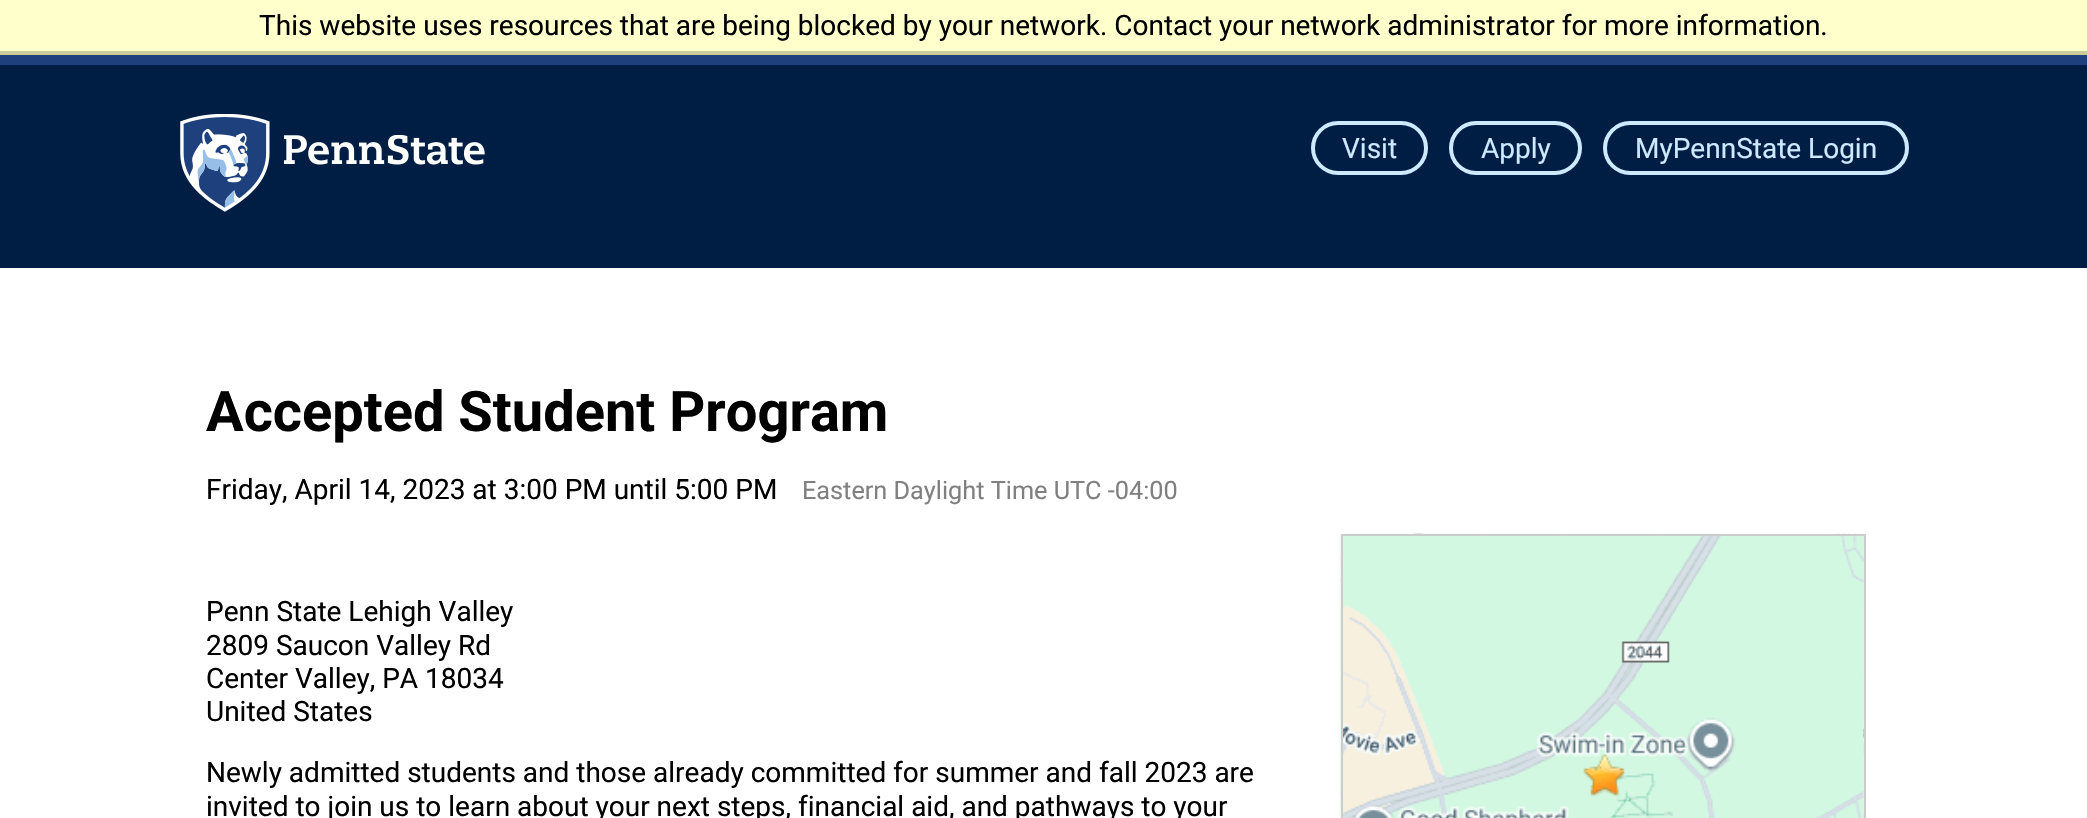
#include "include/core/SkBlurTypes.h"
#include "include/core/SkCanvas.h"
#include "include/core/SkData.h"
#include "include/core/SkFont.h"
#include "include/core/SkFontMgr.h"
#include "include/core/SkImage.h"
#include "include/core/SkMaskFilter.h"
#include "include/core/SkPaint.h"
#include "include/core/SkPathBuilder.h"
#include "include/core/SkTextBlob.h"
#include "include/effects/SkDashPathEffect.h"
#include "include/effects/SkGradientShader.h"
#include "include/utils/SkParsePath.h"

extern sk_sp<SkFontMgr> fontMgr;

void draw(SkCanvas* canvas) {
    SkPaint p;
    p.setAntiAlias(true);
    auto font = [&](const char* family, int weight, float size, bool italic = false) {
        SkFontStyle style(weight, SkFontStyle::kNormal_Width,
            italic ? SkFontStyle::kItalic_Slant : SkFontStyle::kUpright_Slant);
        SkFont result(fontMgr->matchFamilyStyle(family, style), size);
        result.setSubpixel(true);
        return result;
    };
    auto drawPhoto = [&](const char* path, float l, float t, float r, float b) {
        auto image = SkImages::DeferredFromEncodedData(SkData::MakeFromFileName(path));
        canvas->drawImageRect(image, SkRect::MakeLTRB(l, t, r, b), SkSamplingOptions());
    };
    canvas->clear(0xFFFFFFFF);
    p.setColor(0xFFFFFFCC);
    canvas->drawRect(SkRect::MakeLTRB(0, 0, 2087, 51), p);
    p.setColor(0xFFCCCC99);
    canvas->drawRect(SkRect::MakeLTRB(0, 51, 2087, 55), p);
    auto font1 = font("Roboto", 400, 28);
    p.setColor(0xFF000000);
    canvas->drawString("This website uses resources that are being blocked by your network. Contact your network administrator for more information.", 259, 35, font1, p);
    p.setColor(0xFF1E407C);
    canvas->drawRect(SkRect::MakeLTRB(0, 55, 2087, 65), p);
    p.setColor(0xFF001E44);
    canvas->drawRect(SkRect::MakeLTRB(0, 65, 2087, 268), p);
    drawPhoto("media/1.png", 180, 114, 270, 212);
    drawPhoto("media/2.png", 284, 135, 485, 165);
    p.setStyle(SkPaint::kStroke_Style);
    p.setStrokeWidth(4);
    p.setColor(0xFFCCE9FF);
    canvas->drawRoundRect(SkRect::MakeLTRB(1313, 123, 1426, 173), 25, 25, p);
    p.setStyle(SkPaint::kFill_Style);
    canvas->drawString("Visit", 1342, 158, font1, p);
    p.setStyle(SkPaint::kStroke_Style);
    canvas->drawRoundRect(SkRect::MakeLTRB(1451, 123, 1580, 173), 25, 25, p);
    p.setStyle(SkPaint::kFill_Style);
    canvas->drawString("Apply", 1481, 158, font1, p);
    p.setStyle(SkPaint::kStroke_Style);
    canvas->drawRoundRect(SkRect::MakeLTRB(1605, 123, 1907, 173), 25, 25, p);
    p.setStyle(SkPaint::kFill_Style);
    canvas->drawString("MyPennState Login", 1635, 158, font1, p);
    auto font2 = font("Roboto", 700, 56);
    p.setColor(0xFF000000);
    canvas->drawString("Accepted Student Program", 206, 431, font2, p);
    canvas->drawString("Friday, April 14, 2023 at 3:00 PM until 5:00 PM", 206, 499, font1, p);
    auto font3 = font("Roboto", 400, 25.25f);
    p.setColor(0xFF808080);
    canvas->drawString("Eastern Daylight Time UTC -04:00", 802, 499, font3, p);
    p.setColor(0xFF000000);
    {
        const struct { const char* s; float x, y; } items[] = {
            {"Penn State Lehigh Valley", 206, 621},
            {"2809 Saucon Valley Rd", 206, 655},
            {"Center Valley, PA 18034", 206, 688},
            {"United States", 206, 721},
        };
        for (auto [s, x, y] : items) {
            canvas->drawString(s, x, y, font1, p);
        }
    }
    drawPhoto("media/3.png", 1340, 533, 1866, 818);
    p.setStyle(SkPaint::kStroke_Style);
    p.setStrokeWidth(2);
    p.setColor(0xFFCCCCCC);
    canvas->drawRect(SkRect::MakeLTRB(1342, 535, 1865, 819), p);
    p.setStyle(SkPaint::kFill_Style);
    p.setColor(0xFF000000);
    canvas->drawString("Newly admitted students and those already committed for summer and fall 2023 are", 206, 782, font1, p);
    canvas->drawString("invited to join us to learn about your next steps, financial aid, and pathways to your", 206, 816, font1, p);
}
